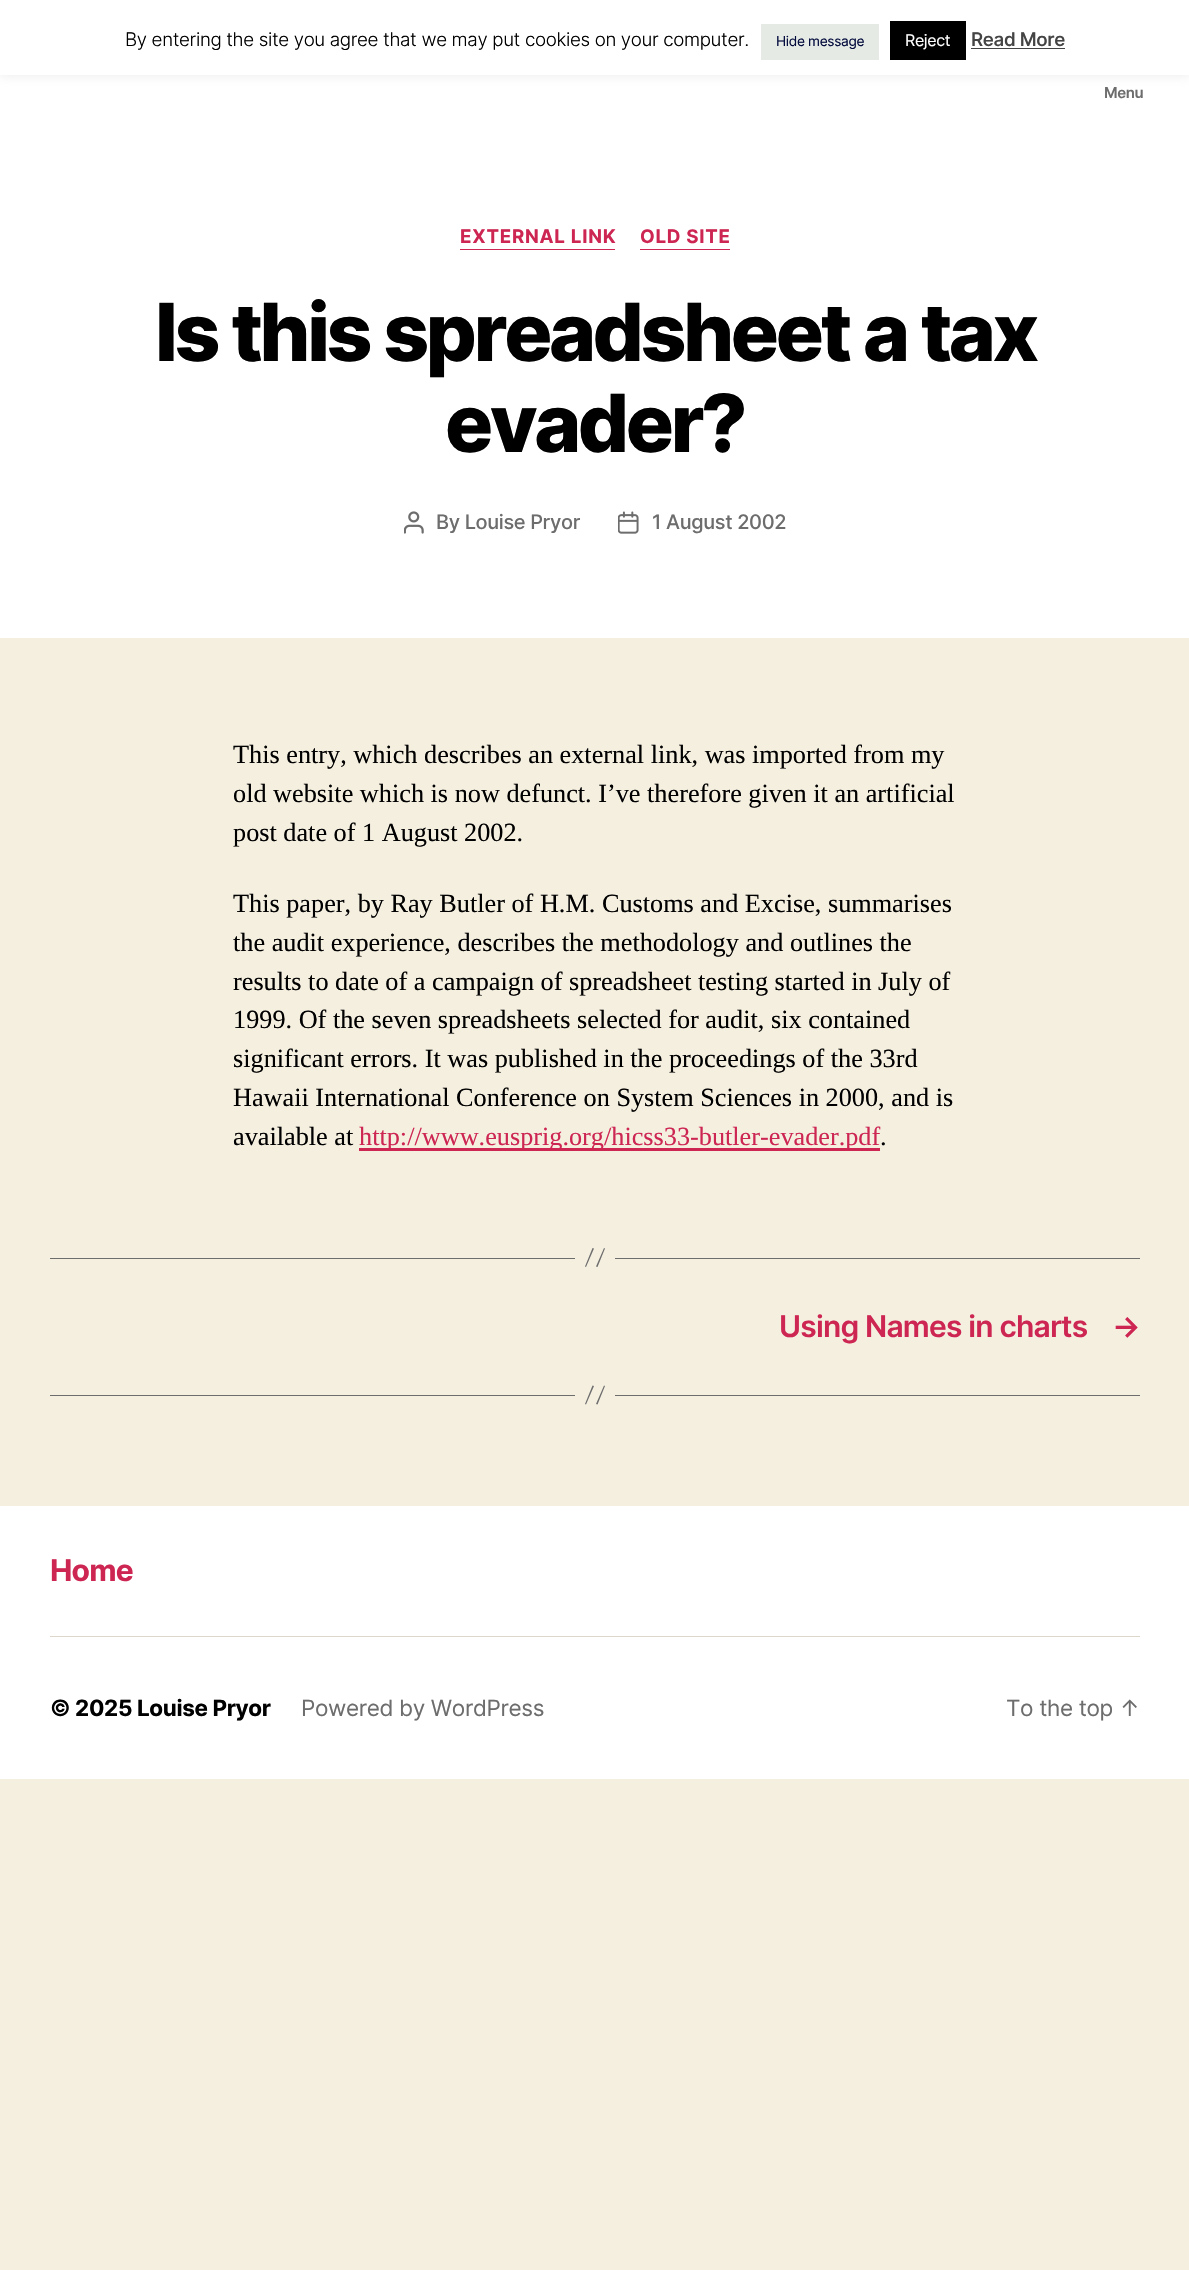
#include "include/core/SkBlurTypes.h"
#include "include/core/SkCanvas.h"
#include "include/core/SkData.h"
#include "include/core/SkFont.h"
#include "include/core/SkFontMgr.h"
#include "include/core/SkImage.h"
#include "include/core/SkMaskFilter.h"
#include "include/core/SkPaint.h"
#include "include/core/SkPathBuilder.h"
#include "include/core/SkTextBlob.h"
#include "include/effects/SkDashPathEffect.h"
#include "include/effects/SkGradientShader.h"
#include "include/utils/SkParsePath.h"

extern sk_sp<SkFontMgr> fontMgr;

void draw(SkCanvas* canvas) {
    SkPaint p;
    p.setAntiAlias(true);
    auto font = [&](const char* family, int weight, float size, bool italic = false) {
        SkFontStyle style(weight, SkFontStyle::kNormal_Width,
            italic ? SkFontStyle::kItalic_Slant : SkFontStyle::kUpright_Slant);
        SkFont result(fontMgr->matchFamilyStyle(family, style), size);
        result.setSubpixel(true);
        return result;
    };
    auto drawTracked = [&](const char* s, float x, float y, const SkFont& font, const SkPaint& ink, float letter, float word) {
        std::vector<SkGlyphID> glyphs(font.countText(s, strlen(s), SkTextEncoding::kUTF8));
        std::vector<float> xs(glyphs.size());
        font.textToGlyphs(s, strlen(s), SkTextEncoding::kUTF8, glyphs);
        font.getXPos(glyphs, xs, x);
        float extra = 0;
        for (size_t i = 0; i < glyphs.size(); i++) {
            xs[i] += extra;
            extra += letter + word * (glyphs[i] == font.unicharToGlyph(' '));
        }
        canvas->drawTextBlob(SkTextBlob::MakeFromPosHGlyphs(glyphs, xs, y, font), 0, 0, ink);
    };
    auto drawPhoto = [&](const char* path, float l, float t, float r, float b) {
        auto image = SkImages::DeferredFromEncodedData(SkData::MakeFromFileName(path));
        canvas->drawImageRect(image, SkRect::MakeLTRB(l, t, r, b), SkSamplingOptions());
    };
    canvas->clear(0xFFF5EFE0);
    p.setColor(0xFFFFFFFF);
    canvas->drawRect(SkRect::MakeLTRB(0, 75, 1189, 638), p);
    p.setColor(0x4DACABAB);
    p.setMaskFilter(SkMaskFilter::MakeBlur(kNormal_SkBlurStyle, 6));
    canvas->drawRect(SkRect::MakeLTRB(0, -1, 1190, 74), p);
    p.setMaskFilter(nullptr);
    p.setColor(0xFFFFFFFF);
    canvas->drawRect(SkRect::MakeLTRB(0, 0, 1189, 75), p);
    auto font1 = font("Inter", 300, 18.75f);
    p.setColor(0xFF000000);
    drawTracked("By entering the site you agree that we may put cookies on your computer.", 125, 46, font1, p, -0.35f, 0);
    p.setColor(0xFFE6EAE5);
    canvas->drawRect(SkRect::MakeLTRB(761, 24, 879, 60), p);
    auto font2 = font("Inter", 400, 13.75f);
    p.setColor(0xFF020A3C);
    drawTracked("Hide message", 776, 46, font2, p, -0.35f, 0);
    p.setColor(0xFF000000);
    canvas->drawRect(SkRect::MakeLTRB(890, 21, 966, 60), p);
    auto font3 = font("Inter", 400, 16);
    p.setColor(0xFFFFFFFF);
    drawTracked("Reject", 905, 46, font3, p, -0.35f, 0);
    auto font4 = font("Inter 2", 500, 18.75f);
    p.setColor(0xFF444444);
    drawTracked("Read More", 971, 46, font4, p, -0.35f, 0);
    canvas->drawRect(SkRect::MakeLTRB(971, 48, 1065, 49), p);
    auto font5 = font("Inter", 600, 15);
    p.setColor(0xFF6D6D6D);
    drawTracked("Menu", 1104, 98, font5, p, -0.35f, 0);
    p.setColor(0xFFCD2653);
    canvas->drawRect(SkRect::MakeLTRB(460, 249, 615, 250), p);
    auto font6 = font("Inter", 700, 18.75f);
    drawTracked("EXTERNAL LINK", 460, 243, font6, p, 0.75f, 0);
    canvas->drawRect(SkRect::MakeLTRB(640, 249, 730, 250), p);
    drawTracked("OLD SITE", 640, 243, font6, p, 0.75f, 0);
    auto font7 = font("Inter", 800, 80);
    p.setColor(0xFF000000);
    drawTracked("Is this spreadsheet a tax", 155, 361, font7, p, -3.3f, 0);
    drawTracked("evader?", 445, 452, font7, p, -3.3f, 0);
    drawPhoto("media/1.png", 404, 511, 424, 534);
    auto font8 = font("Inter", 500, 20);
    p.setColor(0xFF6D6D6D);
    drawTracked("By Louise Pryor", 436, 529, font8, p, -0.35f, 0);
    drawPhoto("media/2.png", 618, 511, 639, 534);
    drawTracked("1 August 2002", 652, 529, font8, p, -0.35f, 0);
    auto font9 = font("Liberation Serif", 400, 26.25f);
    p.setColor(0xFF000000);
    {
        const struct { const char* s; float x, y; } items[] = {
            {"This entry, which describes an external link, was imported from my", 233, 763},
            {"old website which is now defunct. I’ve therefore given it an artificial", 233, 802},
            {"post date of 1 August 2002.", 233, 841},
            {"This paper, by Ray Butler of H.M. Customs and Excise, summarises", 233, 912},
            {"the audit experience, describes the methodology and outlines the", 233, 951},
            {"results to date of a campaign of spreadsheet testing started in July of", 233, 990},
            {"1999. Of the seven spreadsheets selected for audit, six contained", 233, 1028},
            {"significant errors. It was published in the proceedings of the 33rd", 233, 1067},
            {"Hawaii International Conference on System Sciences in 2000, and is", 233, 1106},
            {"available at", 233, 1145},
        };
        for (auto [s, x, y] : items) {
            canvas->drawString(s, x, y, font9, p);
        }
    }
    p.setColor(0xFFCD2653);
    canvas->drawRect(SkRect::MakeLTRB(359, 1148, 880, 1151), p);
    canvas->drawString("http://www.eusprig.org/hicss33-butler-evader.pdf", 359, 1145, font9, p);
    p.setColor(0xFF000000);
    canvas->drawString(".", 880, 1145, font9, p);
    p.setColor(0xFF6D6D6D);
    canvas->drawRect(SkRect::MakeLTRB(615, 1258, 1140, 1259), p);
    canvas->drawRect(SkRect::MakeLTRB(50, 1258, 575, 1259), p);
    canvas->drawPath(SkPathBuilder().moveTo(592.5f, 1248).lineTo(594, 1248.5f).lineTo(586, 1267).lineTo(585, 1266.5f).close().moveTo(604, 1248).lineTo(605, 1248.5f).lineTo(597.5f, 1267).lineTo(596, 1266.5f).close().detach(), p);
    auto font10 = font("Inter", 600, 30);
    p.setColor(0xFFCD2653);
    drawTracked("Using Names in charts", 779, 1337, font10, p, -0.8f, 0);
    drawTracked("→", 1112, 1337, font10, p, -0.8f, 0);
    p.setColor(0xFF6D6D6D);
    canvas->drawRect(SkRect::MakeLTRB(615, 1395, 1140, 1396), p);
    canvas->drawRect(SkRect::MakeLTRB(50, 1395, 575, 1396), p);
    canvas->drawPath(SkPathBuilder().moveTo(592.5f, 1385.5f).lineTo(594, 1386).lineTo(586, 1404.5f).lineTo(585, 1404).close().moveTo(604, 1385.5f).lineTo(605, 1386).lineTo(597.5f, 1404.5f).lineTo(596, 1404).close().detach(), p);
    p.setColor(0xFFFFFFFF);
    canvas->drawRect(SkRect::MakeLTRB(0, 1506, 1189, 1779), p);
    p.setColor(0xFFDCD7CA);
    canvas->drawRect(SkRect::MakeLTRB(50, 1636, 1140, 1637), p);
    auto font11 = font("Inter", 700, 30);
    p.setColor(0xFFCD2653);
    drawTracked("Home", 50, 1581, font11, p, -0.8f, 0);
    auto font12 = font("Inter", 700, 22.5f);
    p.setColor(0xFF000000);
    drawTracked("© 2025 Louise Pryor", 50, 1716, font12, p, -0.35f, 0);
    auto font13 = font("Inter", 400, 22.5f);
    p.setColor(0xFF6D6D6D);
    drawTracked("Powered by WordPress", 301, 1716, font13, p, -0.35f, 0);
    drawTracked("To the top ↑", 1006, 1716, font13, p, -0.35f, 0);
}
